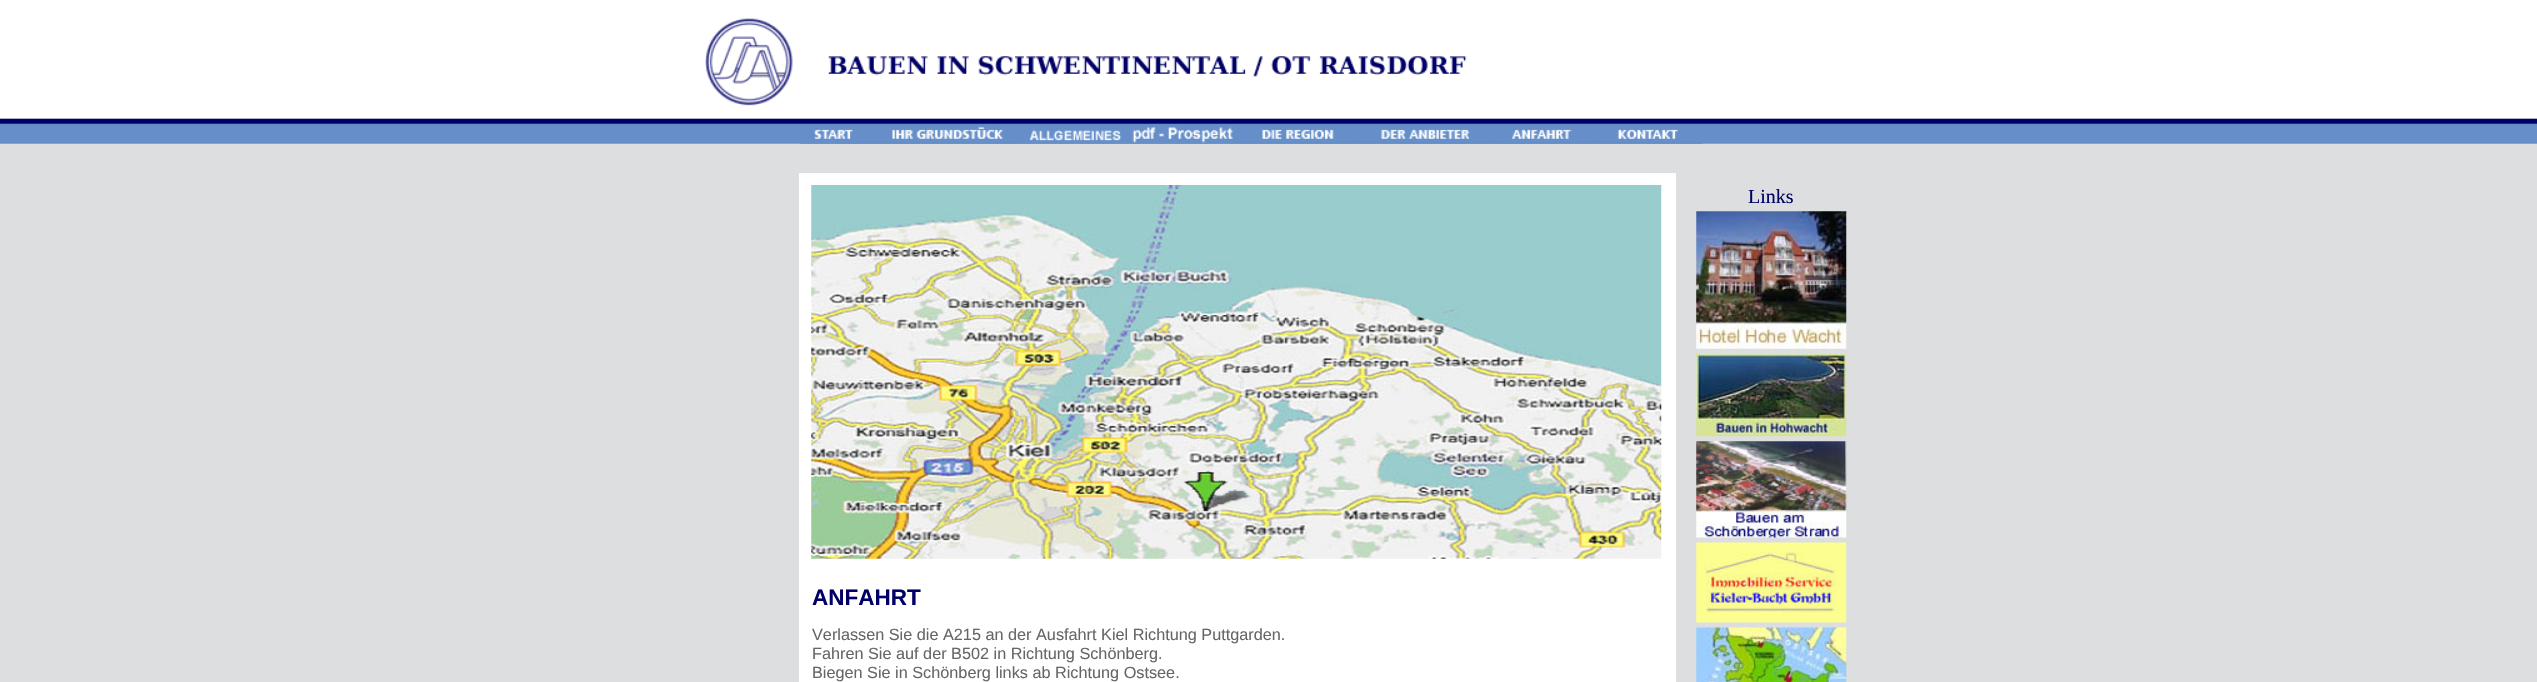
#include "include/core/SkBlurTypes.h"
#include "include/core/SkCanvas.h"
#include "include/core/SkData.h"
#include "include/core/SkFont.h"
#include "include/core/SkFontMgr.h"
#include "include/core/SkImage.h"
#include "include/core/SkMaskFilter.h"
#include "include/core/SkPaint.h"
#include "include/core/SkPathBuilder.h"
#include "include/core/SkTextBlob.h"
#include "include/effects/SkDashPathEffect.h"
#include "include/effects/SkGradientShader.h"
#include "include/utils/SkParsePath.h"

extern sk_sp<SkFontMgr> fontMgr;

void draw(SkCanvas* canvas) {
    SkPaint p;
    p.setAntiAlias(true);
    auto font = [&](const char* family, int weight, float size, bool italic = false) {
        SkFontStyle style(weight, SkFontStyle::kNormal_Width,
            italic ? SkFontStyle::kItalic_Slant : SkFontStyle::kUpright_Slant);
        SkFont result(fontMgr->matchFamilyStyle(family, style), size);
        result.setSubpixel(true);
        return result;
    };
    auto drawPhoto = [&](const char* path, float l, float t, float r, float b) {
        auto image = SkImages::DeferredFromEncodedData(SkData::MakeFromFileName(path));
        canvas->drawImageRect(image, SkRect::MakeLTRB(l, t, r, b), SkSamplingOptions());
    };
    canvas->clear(0xFFFFFFFF);
    drawPhoto("media/1.png", 0, 118, 2537, 682);
    drawPhoto("media/2.png", 705, 18, 793, 106);
    drawPhoto("media/3.png", 828, 56, 1467, 77);
    drawPhoto("media/4.png", 800, 129, 870, 144);
    drawPhoto("media/5.png", 870, 127, 1023, 144);
    drawPhoto("media/6.png", 1022, 130, 1129, 144);
    drawPhoto("media/7.png", 1129, 127, 1235, 144);
    drawPhoto("media/8.png", 1235, 129, 1358, 144);
    drawPhoto("media/9.png", 1357, 129, 1494, 144);
    drawPhoto("media/10.png", 1494, 129, 1598, 144);
    drawPhoto("media/11.png", 1597, 129, 1703, 144);
    auto font1 = font("Liberation Serif", 400, 20);
    p.setColor(0xFF000066);
    canvas->drawString("Links", 1748, 203, font1, p);
    drawPhoto("media/12.png", 1696, 211, 1847, 349);
    drawPhoto("media/13.png", 1696, 353, 1847, 437);
    drawPhoto("media/14.png", 1696, 441, 1847, 538);
    drawPhoto("media/15.png", 1696, 542, 1847, 623);
    drawPhoto("media/16.png", 1696, 627, 1847, 682);
    p.setColor(0xFFFFFFFF);
    canvas->drawRect(SkRect::MakeLTRB(799, 173, 1676, 682), p);
    drawPhoto("media/17.png", 811, 185, 1662, 559);
    auto font2 = font("Liberation Sans", 700, 22.5f);
    p.setColor(0xFF000066);
    canvas->drawString("ANFAHRT", 812, 605, font2, p);
    auto font3 = font("Liberation Sans", 400, 16.25f);
    p.setColor(0xFF666666);
    {
        const struct { const char* s; float x, y; } items[] = {
            {"Verlassen Sie die A215 an der Ausfahrt Kiel Richtung Puttgarden.", 812, 640},
            {"Fahren Sie auf der B502 in Richtung Schönberg.", 812, 659},
            {"Biegen Sie in Schönberg links ab Richtung Ostsee.", 812, 678},
        };
        for (auto [s, x, y] : items) {
            canvas->drawString(s, x, y, font3, p);
        }
    }
}
